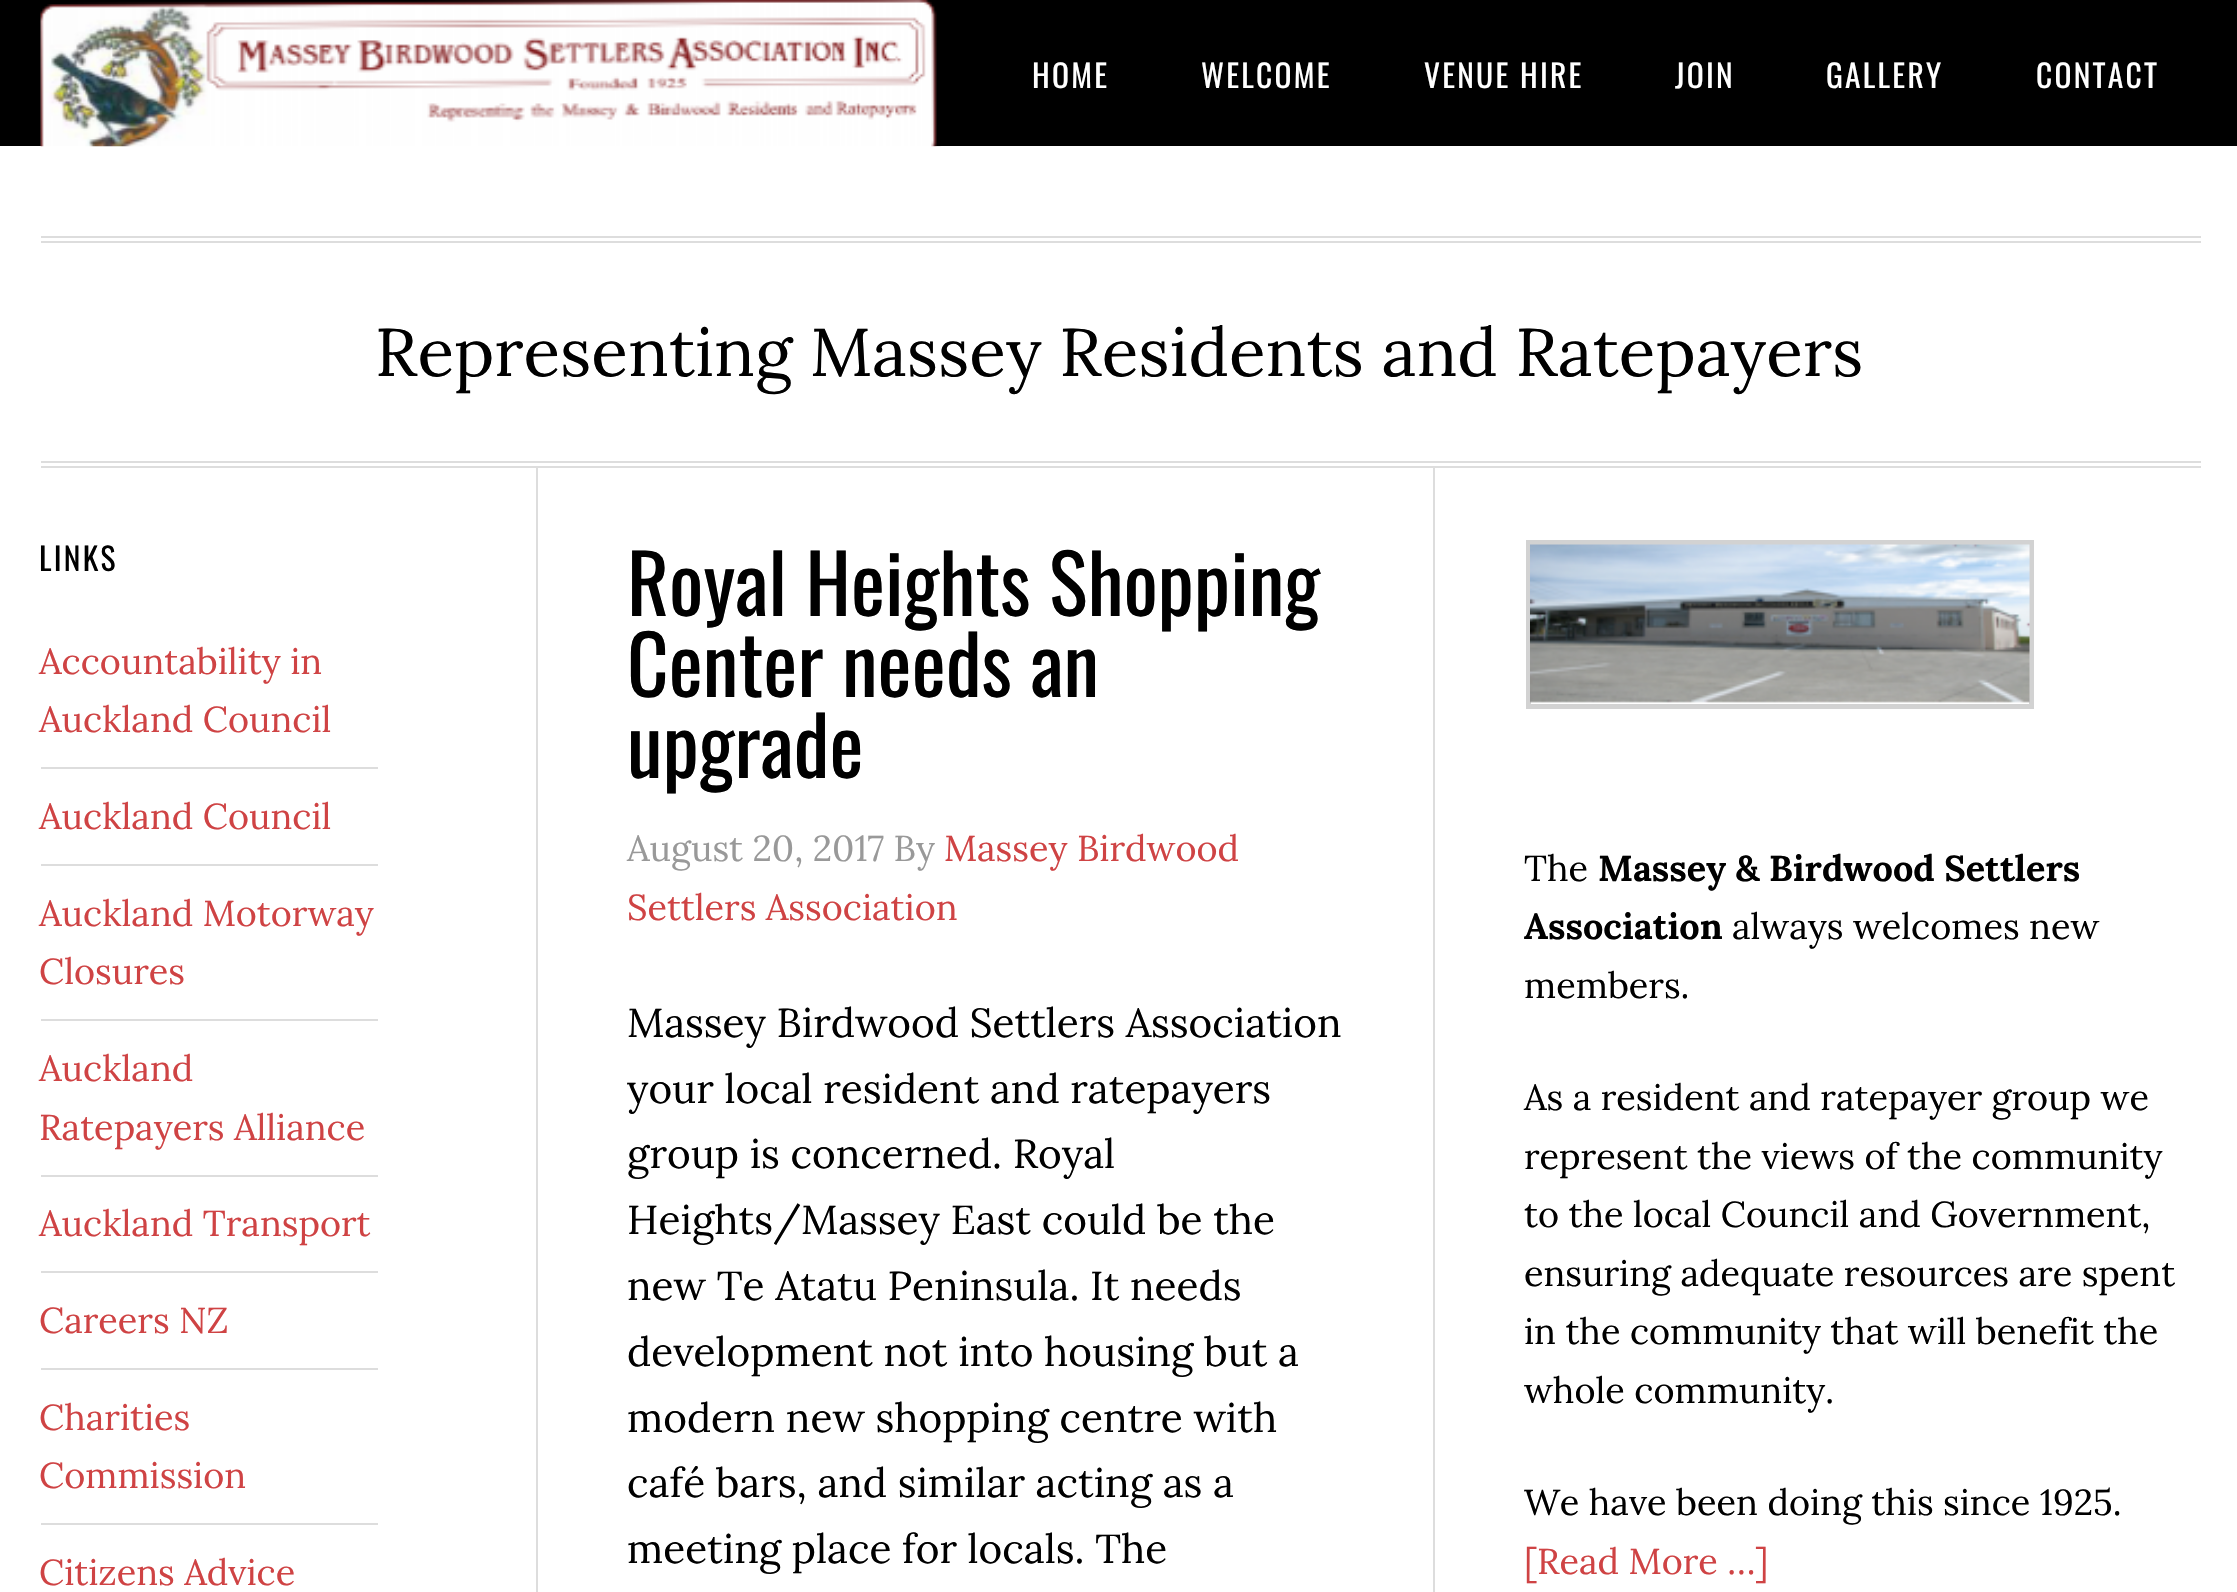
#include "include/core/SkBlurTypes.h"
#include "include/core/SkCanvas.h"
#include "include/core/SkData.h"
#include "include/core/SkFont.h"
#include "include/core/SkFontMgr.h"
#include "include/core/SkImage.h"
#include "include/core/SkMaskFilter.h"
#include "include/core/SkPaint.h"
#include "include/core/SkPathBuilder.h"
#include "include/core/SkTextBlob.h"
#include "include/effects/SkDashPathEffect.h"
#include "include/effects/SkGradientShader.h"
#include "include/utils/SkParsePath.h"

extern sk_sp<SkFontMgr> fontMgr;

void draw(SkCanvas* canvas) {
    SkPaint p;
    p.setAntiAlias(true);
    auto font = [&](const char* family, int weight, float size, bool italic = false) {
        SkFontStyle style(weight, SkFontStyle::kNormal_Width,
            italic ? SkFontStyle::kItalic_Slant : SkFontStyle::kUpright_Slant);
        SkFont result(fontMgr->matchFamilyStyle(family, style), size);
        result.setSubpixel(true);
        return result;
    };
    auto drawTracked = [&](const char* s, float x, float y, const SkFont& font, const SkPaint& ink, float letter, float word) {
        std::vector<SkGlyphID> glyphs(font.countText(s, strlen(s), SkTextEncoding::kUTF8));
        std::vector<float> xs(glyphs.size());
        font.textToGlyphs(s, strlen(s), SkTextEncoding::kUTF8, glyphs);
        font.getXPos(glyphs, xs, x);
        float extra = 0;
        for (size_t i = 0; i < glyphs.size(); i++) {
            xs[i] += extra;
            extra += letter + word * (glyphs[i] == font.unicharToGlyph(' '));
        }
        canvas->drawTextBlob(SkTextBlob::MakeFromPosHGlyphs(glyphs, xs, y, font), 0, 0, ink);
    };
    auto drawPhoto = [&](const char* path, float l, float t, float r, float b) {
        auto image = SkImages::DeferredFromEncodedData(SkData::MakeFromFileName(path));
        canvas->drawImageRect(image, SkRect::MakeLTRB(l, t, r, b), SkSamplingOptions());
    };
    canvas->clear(0xFFFFFFFF);
    p.setColor(0xFF000000);
    canvas->drawRect(SkRect::MakeLTRB(0, 0, 2237, 146), p);
    drawPhoto("media/1.png", 40, 0, 941, 147);
    auto font1 = font("Oswald", 400, 31.5f);
    p.setColor(0xFFFFFFFF);
    {
        const struct { const char* s; float x, y; } items[] = {
            {"HOME", 1032, 88},
            {"WELCOME", 1201, 88},
            {"VENUE HIRE", 1424, 88},
            {"JOIN", 1675, 88},
            {"GALLERY", 1826, 88},
            {"CONTACT", 2036, 88},
        };
        for (auto [s, x, y] : items) {
            drawTracked(s, x, y, font1, p, 2.25f, 0);
        }
    }
    {
        const struct { float l, t, r, b; SkColor color; } items[] = {
            {41, 236, 2201, 238, 0xFFDDDDDD},
            {41, 241, 2201, 243, 0xFFDDDDDD},
            {41, 461, 2201, 463, 0xFFDDDDDD},
            {41, 466, 2201, 468, 0xFFDDDDDD},
        };
        for (auto [l, t, r, b, color] : items) {
            p.setColor(color);
            canvas->drawRect(SkRect::MakeLTRB(l, t, r, b), p);
        }
    }
    auto font2 = font("Lora", 400, 67.5f);
    p.setColor(0xFF000000);
    canvas->drawString("Representing Massey Residents and Ratepayers", 375, 376, font2, p);
    drawTracked("LINKS", 39, 571, font1, p, 2.25f, 0);
    p.setColor(0xFFDDDDDD);
    canvas->drawRect(SkRect::MakeLTRB(41, 767, 378, 769), p);
    auto font3 = font("Lora", 400, 36);
    p.setColor(0xFFCF4344);
    canvas->drawString("Accountability in", 39, 674, font3, p);
    canvas->drawString("Auckland Council", 39, 732, font3, p);
    p.setColor(0xFFDDDDDD);
    canvas->drawRect(SkRect::MakeLTRB(41, 864, 378, 866), p);
    p.setColor(0xFFCF4344);
    canvas->drawString("Auckland Council", 39, 829, font3, p);
    p.setColor(0xFFDDDDDD);
    canvas->drawRect(SkRect::MakeLTRB(41, 1019, 378, 1021), p);
    p.setColor(0xFFCF4344);
    canvas->drawString("Auckland Motorway", 39, 926, font3, p);
    canvas->drawString("Closures", 39, 984, font3, p);
    p.setColor(0xFFDDDDDD);
    canvas->drawRect(SkRect::MakeLTRB(41, 1175, 378, 1177), p);
    p.setColor(0xFFCF4344);
    canvas->drawString("Auckland", 39, 1081, font3, p);
    canvas->drawString("Ratepayers Alliance", 39, 1140, font3, p);
    p.setColor(0xFFDDDDDD);
    canvas->drawRect(SkRect::MakeLTRB(41, 1271, 378, 1273), p);
    p.setColor(0xFFCF4344);
    canvas->drawString("Auckland Transport", 39, 1236, font3, p);
    p.setColor(0xFFDDDDDD);
    canvas->drawRect(SkRect::MakeLTRB(41, 1368, 378, 1370), p);
    p.setColor(0xFFCF4344);
    canvas->drawString("Careers NZ", 39, 1333, font3, p);
    p.setColor(0xFFDDDDDD);
    canvas->drawRect(SkRect::MakeLTRB(41, 1523, 378, 1525), p);
    p.setColor(0xFFCF4344);
    {
        const struct { const char* s; float x, y; } items[] = {
            {"Charities", 39, 1430},
            {"Commission", 39, 1488},
            {"Citizens Advice", 39, 1585},
        };
        for (auto [s, x, y] : items) {
            canvas->drawString(s, x, y, font3, p);
        }
    }
    p.setColor(0xFFDDDDDD);
    canvas->drawRect(SkRect::MakeLTRB(1433, 468, 1435, 1592), p);
    canvas->drawRect(SkRect::MakeLTRB(536, 468, 538, 1592), p);
    auto font4 = font("Oswald", 400, 81);
    p.setColor(0xFF000000);
    {
        const struct { const char* s; float x, y; } items[] = {
            {"Royal Heights Shopping", 627, 616},
            {"Center needs an", 627, 697},
            {"upgrade", 627, 778},
        };
        for (auto [s, x, y] : items) {
            canvas->drawString(s, x, y, font4, p);
        }
    }
    p.setColor(0xFF999999);
    canvas->drawString("August 20, 2017 By", 627, 861, font3, p);
    p.setColor(0xFFCF4344);
    canvas->drawString("Massey Birdwood", 944, 861, font3, p);
    canvas->drawString("Settlers Association", 627, 920, font3, p);
    auto font5 = font("Lora", 400, 40.5f);
    p.setColor(0xFF000000);
    {
        const struct { const char* s; float x, y; } items[] = {
            {"Massey Birdwood Settlers Association", 627, 1037},
            {"your local resident and ratepayers", 627, 1103},
            {"group is concerned. Royal", 627, 1168},
            {"Heights/Massey East could be the", 627, 1234},
            {"new Te Atatu Peninsula. It needs", 627, 1300},
            {"development not into housing but a", 627, 1366},
            {"modern new shopping centre with", 627, 1432},
            {"café bars, and similar acting as a", 627, 1497},
            {"meeting place for locals. The", 627, 1563},
        };
        for (auto [s, x, y] : items) {
            canvas->drawString(s, x, y, font5, p);
        }
    }
    p.setStyle(SkPaint::kStroke_Style);
    p.setStrokeWidth(5);
    p.setColor(0xFFD2D2D2);
    canvas->drawRect(SkRect::MakeLTRB(1528.5f, 542.5f, 2031.5f, 706.5f), p);
    drawPhoto("media/2.png", 1530, 544, 2030, 703);
    p.setStyle(SkPaint::kFill_Style);
    p.setColor(0xFF000000);
    canvas->drawString("The", 1524, 881, font3, p);
    auto font6 = font("Lora", 700, 36);
    canvas->drawString("Massey & Birdwood Settlers", 1598, 881, font6, p);
    canvas->drawString("Association", 1524, 939, font6, p);
    {
        const struct { const char* s; float x, y; } items[] = {
            {"always welcomes new", 1732, 939},
            {"members.", 1524, 998},
            {"As a resident and ratepayer group we", 1524, 1110},
            {"represent the views of the community", 1524, 1169},
            {"to the local Council and Government,", 1524, 1227},
            {"ensuring adequate resources are spent", 1524, 1286},
            {"in the community that will benefit the", 1524, 1344},
            {"whole community.", 1524, 1403},
            {"We have been doing this since 1925.", 1524, 1515},
        };
        for (auto [s, x, y] : items) {
            canvas->drawString(s, x, y, font3, p);
        }
    }
    p.setColor(0xFFCF4344);
    canvas->drawString("[Read More …]", 1524, 1574, font3, p);
}
